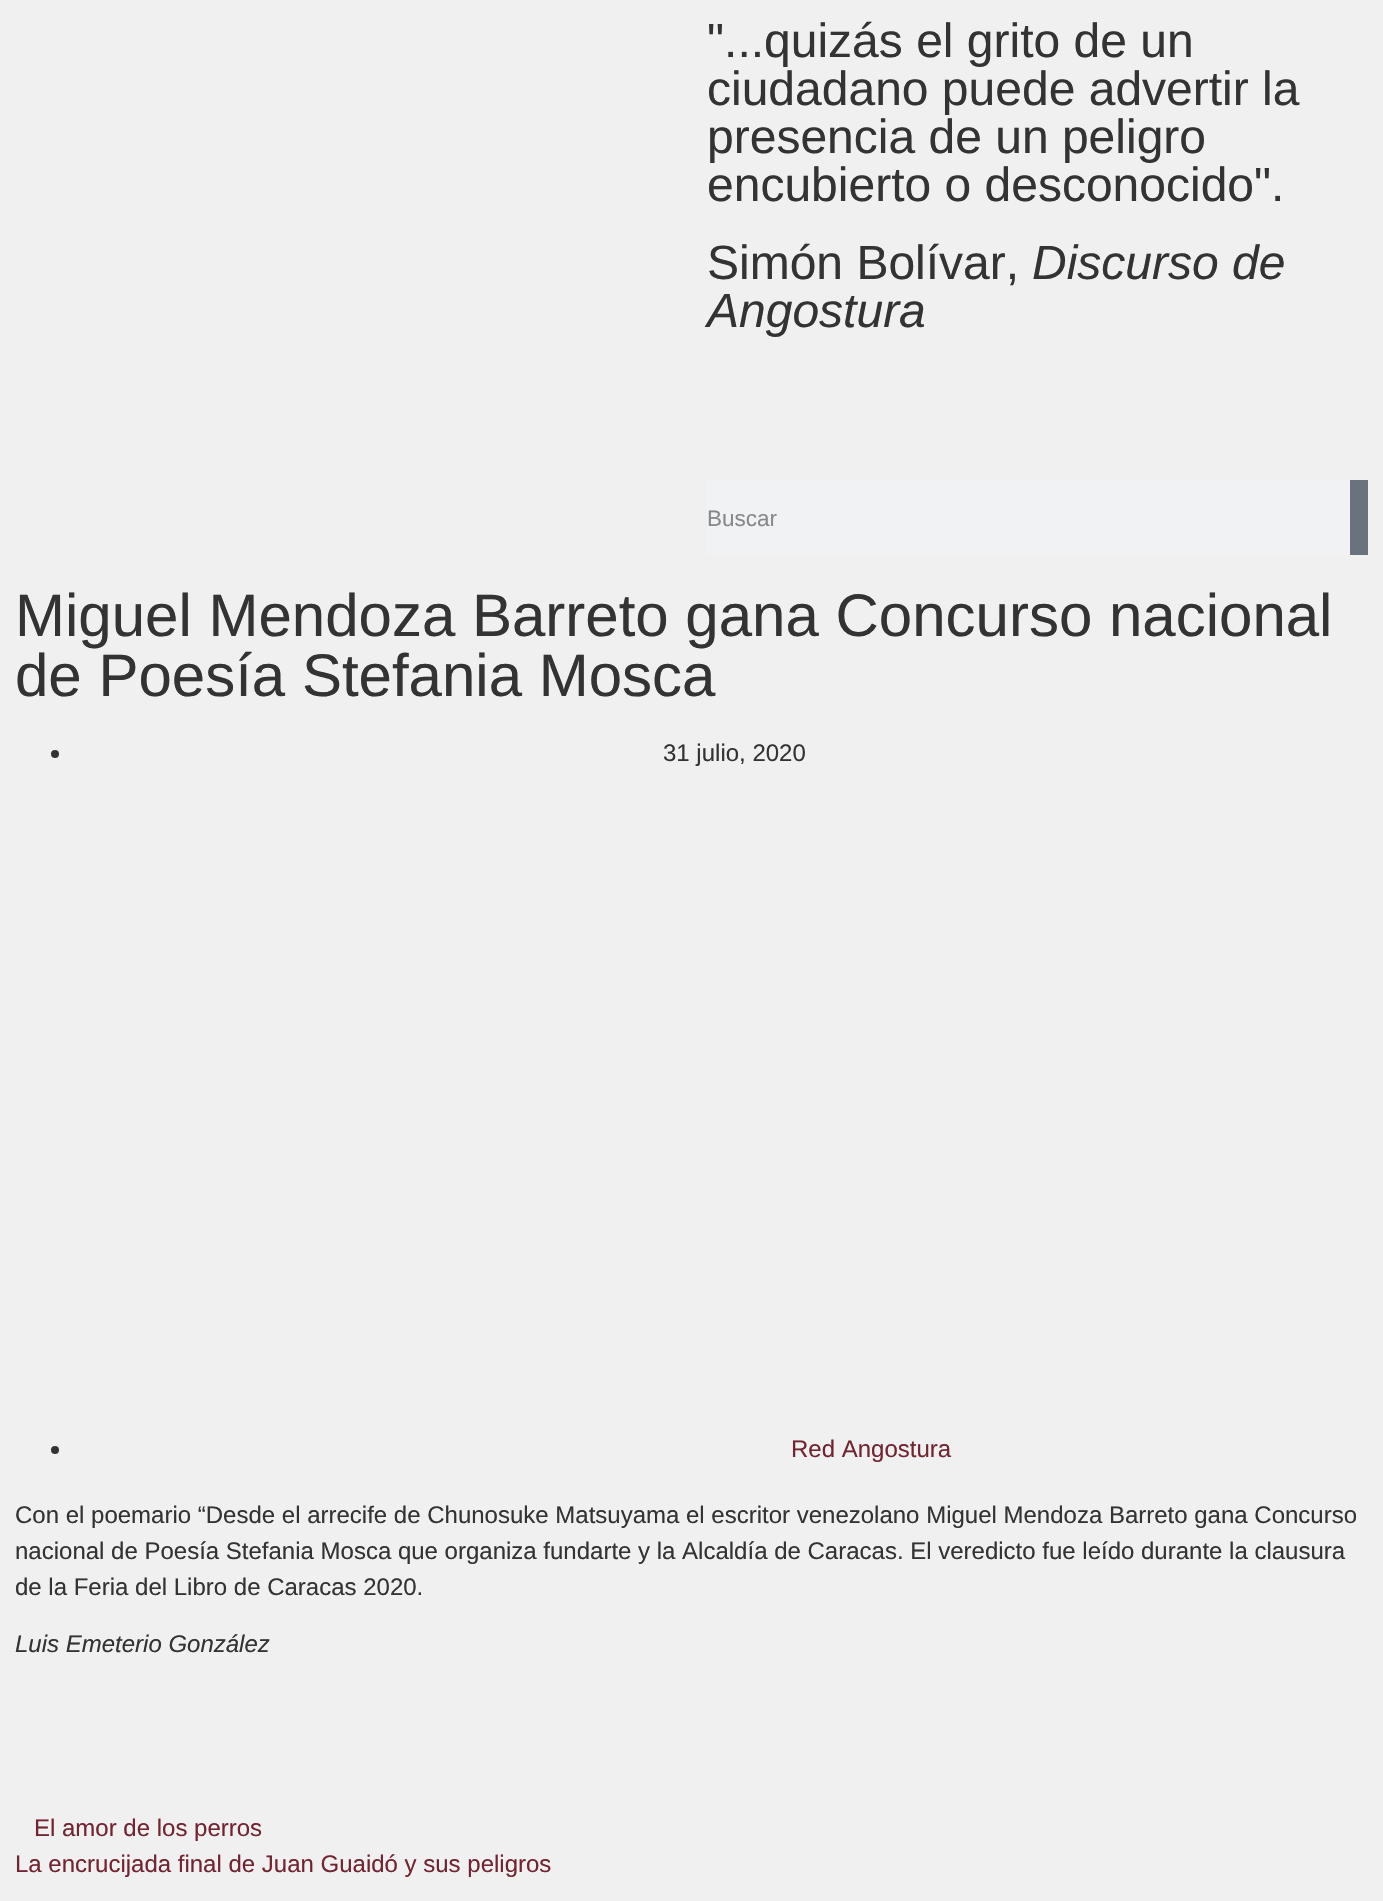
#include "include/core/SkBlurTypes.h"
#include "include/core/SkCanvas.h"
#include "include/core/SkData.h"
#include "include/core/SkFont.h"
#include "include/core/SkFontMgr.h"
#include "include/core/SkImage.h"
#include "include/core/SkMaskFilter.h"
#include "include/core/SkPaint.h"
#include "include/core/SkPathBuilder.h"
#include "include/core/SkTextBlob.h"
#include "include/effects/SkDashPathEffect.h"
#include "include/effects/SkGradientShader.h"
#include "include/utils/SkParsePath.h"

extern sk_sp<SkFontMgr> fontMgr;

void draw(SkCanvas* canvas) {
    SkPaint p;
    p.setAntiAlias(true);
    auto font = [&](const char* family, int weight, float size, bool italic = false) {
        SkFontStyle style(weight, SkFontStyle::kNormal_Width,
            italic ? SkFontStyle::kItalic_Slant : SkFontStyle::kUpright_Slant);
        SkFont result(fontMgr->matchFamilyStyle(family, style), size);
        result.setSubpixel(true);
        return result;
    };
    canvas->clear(0xFFF0F0F0);
    auto font1 = font("Liberation Sans", 400, 48);
    p.setColor(0xFF333333);
    {
        const struct { const char* s; float x, y; } items[] = {
            {"\"...quizás el grito de un", 707, 57},
            {"ciudadano puede advertir la", 707, 105},
            {"presencia de un peligro", 707, 153},
            {"encubierto o desconocido\".", 707, 201},
            {"Simón Bolívar,", 707, 279},
        };
        for (auto [s, x, y] : items) {
            canvas->drawString(s, x, y, font1, p);
        }
    }
    auto font2 = font("Liberation Sans", 400, 48, true);
    canvas->drawString("Discurso de", 1032, 279, font2, p);
    canvas->drawString("Angostura", 707, 327, font2, p);
    p.setColor(0xFFF1F2F3);
    canvas->drawRect(SkRect::MakeLTRB(707, 480, 1350, 555), p);
    auto font3 = font("Liberation Sans", 400, 22.5f);
    p.setColor(0xFF868A8E);
    canvas->drawString("Buscar", 707, 526, font3, p);
    p.setColor(0xFF69727D);
    canvas->drawRect(SkRect::MakeLTRB(1350, 480, 1368, 555), p);
    auto font4 = font("Liberation Sans", 400, 60);
    p.setColor(0xFF333333);
    canvas->drawString("Miguel Mendoza Barreto gana Concurso nacional", 15, 636, font4, p);
    canvas->drawString("de Poesía Stefania Mosca", 15, 696, font4, p);
    canvas->drawCircle(55, 754, 4, p);
    auto font5 = font("Liberation Sans", 400, 24);
    canvas->drawString("31 julio, 2020", 663, 761, font5, p);
    canvas->drawCircle(55, 1450, 4, p);
    p.setColor(0xFF722531);
    canvas->drawString("Red Angostura", 791, 1457, font5, p);
    p.setColor(0xFF333333);
    {
        const struct { const char* s; float x, y; } items[] = {
            {"Con el poemario “Desde el arrecife de Chunosuke Matsuyama el escritor venezolano Miguel Mendoza Barreto gana Concurso", 15, 1523},
            {"nacional de Poesía Stefania Mosca que organiza fundarte y la Alcaldía de Caracas. El veredicto fue leído durante la clausura", 15, 1559},
            {"de la Feria del Libro de Caracas 2020.", 15, 1595},
        };
        for (auto [s, x, y] : items) {
            canvas->drawString(s, x, y, font5, p);
        }
    }
    auto font6 = font("Liberation Sans", 400, 24, true);
    canvas->drawString("Luis Emeterio González", 15, 1652, font6, p);
    p.setColor(0xFF722531);
    canvas->drawString("El amor de los perros", 34, 1836, font5, p);
    canvas->drawString("La encrucijada final de Juan Guaidó y sus peligros", 15, 1872, font5, p);
}
